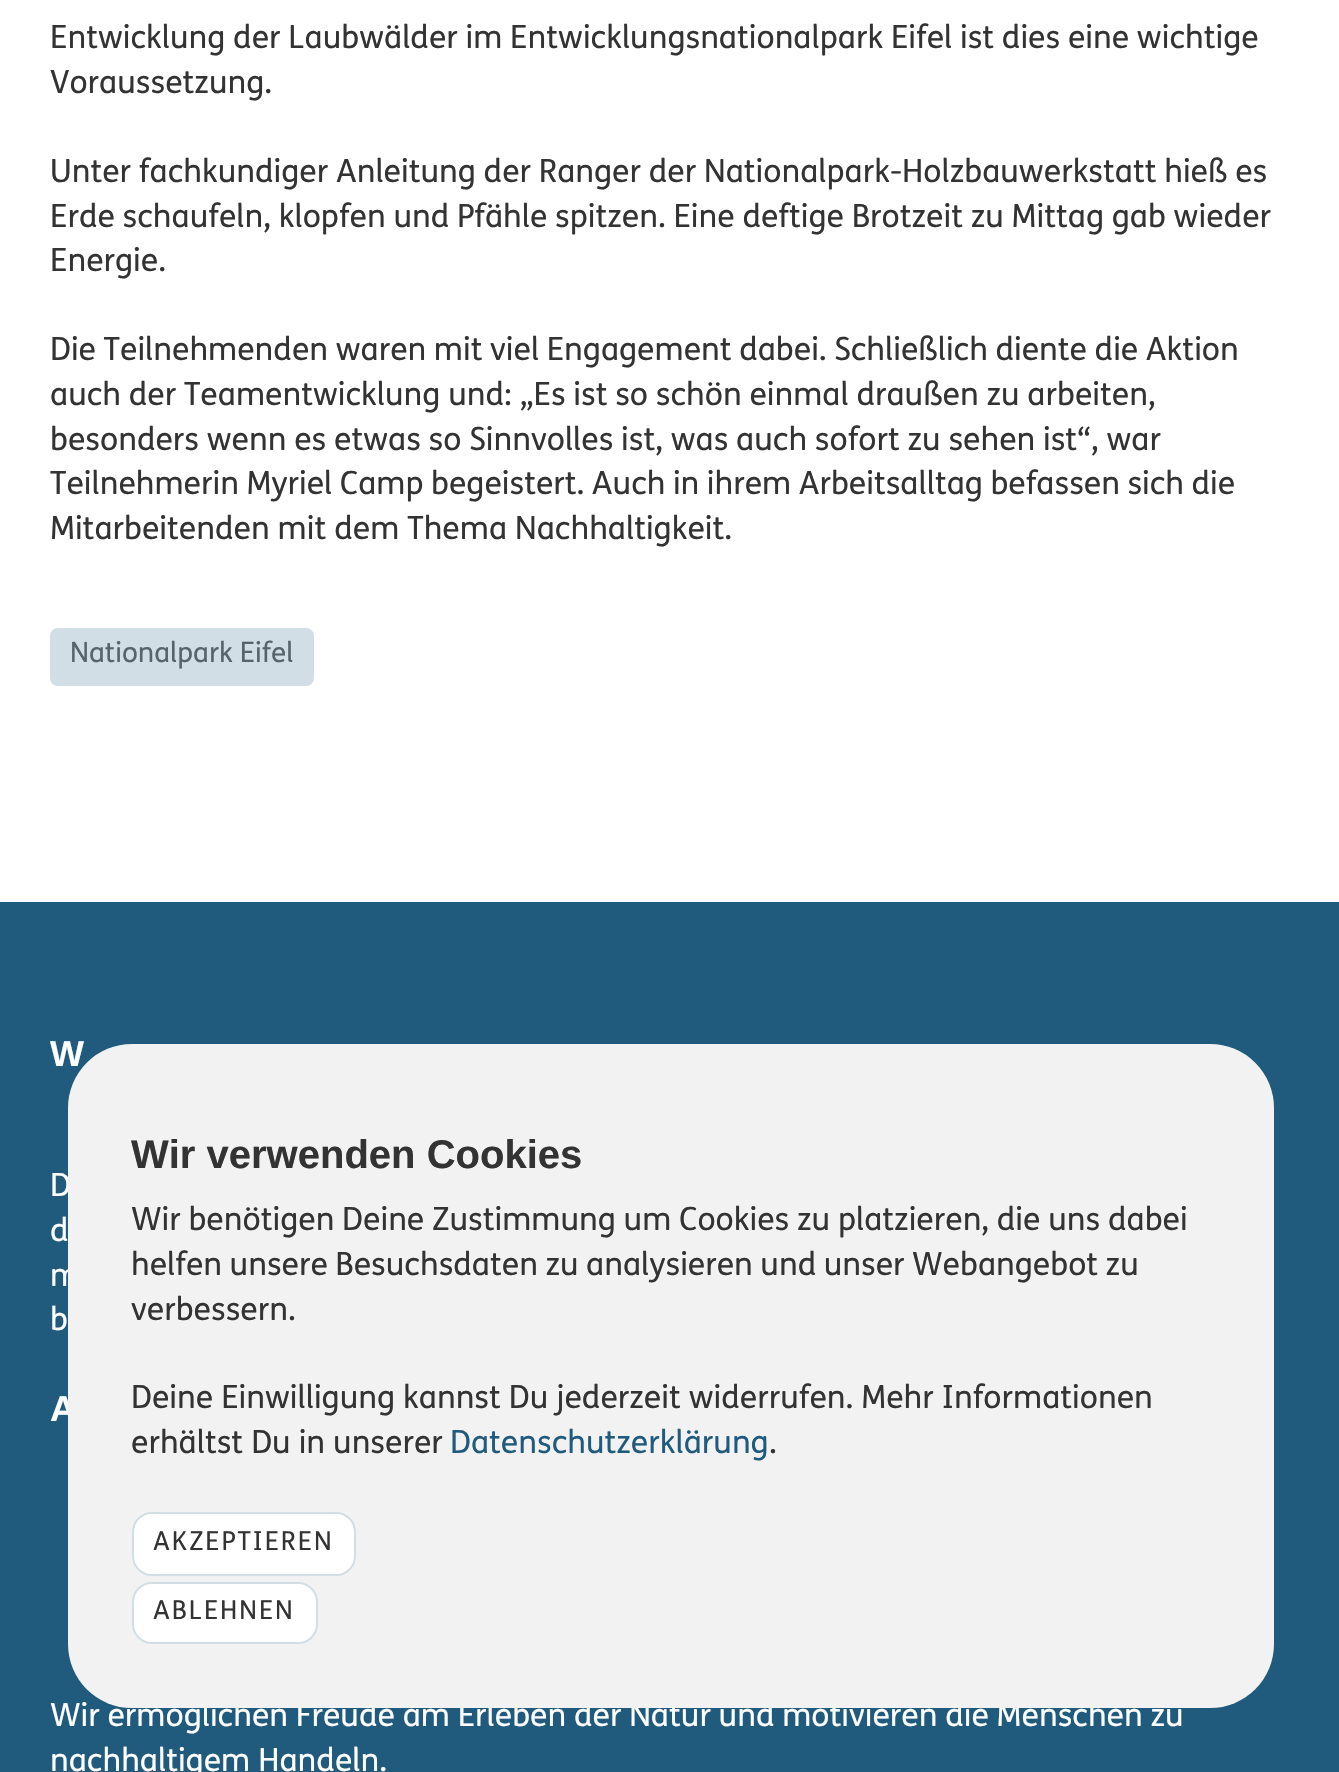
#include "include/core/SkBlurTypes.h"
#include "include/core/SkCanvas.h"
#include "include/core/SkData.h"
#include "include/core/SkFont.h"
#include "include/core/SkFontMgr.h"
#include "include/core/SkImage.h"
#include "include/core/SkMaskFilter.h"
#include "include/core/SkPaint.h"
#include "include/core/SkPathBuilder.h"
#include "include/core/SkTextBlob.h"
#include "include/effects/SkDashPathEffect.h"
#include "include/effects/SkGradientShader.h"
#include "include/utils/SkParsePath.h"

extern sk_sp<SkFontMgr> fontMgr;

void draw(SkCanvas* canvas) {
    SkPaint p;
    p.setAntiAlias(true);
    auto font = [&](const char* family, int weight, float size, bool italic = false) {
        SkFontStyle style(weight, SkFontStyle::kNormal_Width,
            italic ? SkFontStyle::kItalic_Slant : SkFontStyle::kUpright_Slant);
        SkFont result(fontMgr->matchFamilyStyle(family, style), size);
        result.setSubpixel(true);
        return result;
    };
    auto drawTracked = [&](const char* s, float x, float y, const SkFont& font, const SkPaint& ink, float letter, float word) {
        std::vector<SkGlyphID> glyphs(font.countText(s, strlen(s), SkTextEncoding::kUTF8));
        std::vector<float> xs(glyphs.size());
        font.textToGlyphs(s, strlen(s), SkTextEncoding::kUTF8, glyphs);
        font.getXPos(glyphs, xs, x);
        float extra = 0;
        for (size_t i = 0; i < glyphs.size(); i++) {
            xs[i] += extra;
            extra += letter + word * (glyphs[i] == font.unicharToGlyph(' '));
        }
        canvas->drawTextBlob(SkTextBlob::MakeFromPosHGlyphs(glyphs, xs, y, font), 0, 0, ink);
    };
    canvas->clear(0xFFFFFFFF);
    auto font1 = font("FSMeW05", 400, 32);
    p.setColor(0xFF333333);
    drawTracked("Entwicklung der Laubwälder im Entwicklungsnationalpark Eifel ist dies eine wichtige", 50, 48, font1, p, 0, -0.25f);
    canvas->drawString("Voraussetzung.", 50, 93, font1, p);
    drawTracked("Unter fachkundiger Anleitung der Ranger der Nationalpark-Holzbauwerkstatt hieß es", 50, 182, font1, p, 0, -0.25f);
    drawTracked("Erde schaufeln, klopfen und Pfähle spitzen. Eine deftige Brotzeit zu Mittag gab wieder", 50, 227, font1, p, 0, -0.25f);
    canvas->drawString("Energie.", 50, 271, font1, p);
    drawTracked("Die Teilnehmenden waren mit viel Engagement dabei. Schließlich diente die Aktion", 50, 360, font1, p, 0, -0.4f);
    drawTracked("auch der Teamentwicklung und: „Es ist so schön einmal draußen zu arbeiten,", 50, 405, font1, p, 0, -0.25f);
    drawTracked("besonders wenn es etwas so Sinnvolles ist, was auch sofort zu sehen ist“, war", 50, 450, font1, p, 0, -0.25f);
    drawTracked("Teilnehmerin Myriel Camp begeistert. Auch in ihrem Arbeitsalltag befassen sich die", 50, 494, font1, p, 0, -0.5f);
    canvas->drawString("Mitarbeitenden mit dem Thema Nachhaltigkeit.", 50, 539, font1, p);
    p.setColor(0xFFD2DEE5);
    canvas->drawRoundRect(SkRect::MakeLTRB(50, 628, 314, 686), 8, 8, p);
    auto font2 = font("FSMeW05", 400, 28);
    p.setColor(0xFF58646B);
    canvas->drawString("Nationalpark Eifel", 70, 662, font2, p);
    p.setColor(0xFF205B7D);
    canvas->drawRect(SkRect::MakeLTRB(0, 902, 1339, 1772), p);
    auto font3 = font("Liberation Sans", 700, 36);
    p.setColor(0xFFFFFFFF);
    canvas->drawString("W", 50, 1066, font3, p);
    {
        const struct { const char* s; float x, y; } items[] = {
            {"D", 50, 1196},
            {"d", 50, 1241},
            {"m", 50, 1286},
            {"b", 50, 1330},
        };
        for (auto [s, x, y] : items) {
            canvas->drawString(s, x, y, font1, p);
        }
    }
    canvas->drawString("A", 50, 1421, font3, p);
    drawTracked("Wir ermöglichen Freude am Erleben der Natur und motivieren die Menschen zu", 50, 1726, font1, p, 0, -0.25f);
    canvas->drawString("nachhaltigem Handeln.", 50, 1771, font1, p);
    p.setColor(0xFFF2F2F2);
    canvas->drawRoundRect(SkRect::MakeLTRB(68, 1044, 1274, 1708), 64, 64, p);
    auto font4 = font("Liberation Sans", 700, 40);
    p.setColor(0xFF333333);
    canvas->drawString("Wir verwenden Cookies", 131, 1168, font4, p);
    drawTracked("Wir benötigen Deine Zustimmung um Cookies zu platzieren, die uns dabei", 131, 1230, font1, p, 0, -0.25f);
    drawTracked("helfen unsere Besuchsdaten zu analysieren und unser Webangebot zu", 131, 1275, font1, p, 0, -0.5f);
    {
        const struct { const char* s; float x, y; } items[] = {
            {"verbessern.", 131, 1320},
            {"Deine Einwilligung kannst Du jederzeit widerrufen. Mehr Informationen", 131, 1408},
            {"erhältst Du in unserer", 131, 1453},
        };
        for (auto [s, x, y] : items) {
            canvas->drawString(s, x, y, font1, p);
        }
    }
    p.setColor(0xFF205B7D);
    canvas->drawString("Datenschutzerklärung", 450, 1453, font1, p);
    p.setColor(0xFF333333);
    canvas->drawString(".", 769, 1453, font1, p);
    p.setColor(0xFFFFFFFF);
    canvas->drawRoundRect(SkRect::MakeLTRB(133, 1513, 355, 1575), 19, 19, p);
    p.setStyle(SkPaint::kStroke_Style);
    p.setStrokeWidth(2);
    p.setColor(0xFFD2DEE5);
    canvas->drawRoundRect(SkRect::MakeLTRB(133, 1513, 355, 1575), 19, 19, p);
    auto font5 = font("FSMeW05", 400, 26);
    p.setStyle(SkPaint::kFill_Style);
    p.setColor(0xFF333333);
    drawTracked("AKZEPTIEREN", 153, 1550, font5, p, 2, 0);
    p.setColor(0xFFFFFFFF);
    canvas->drawRoundRect(SkRect::MakeLTRB(133, 1583, 317, 1643), 19, 19, p);
    p.setStyle(SkPaint::kStroke_Style);
    p.setColor(0xFFD2DEE5);
    canvas->drawRoundRect(SkRect::MakeLTRB(133, 1583, 317, 1643), 19, 19, p);
    p.setStyle(SkPaint::kFill_Style);
    p.setColor(0xFF333333);
    drawTracked("ABLEHNEN", 153, 1619, font5, p, 2, 0);
}
